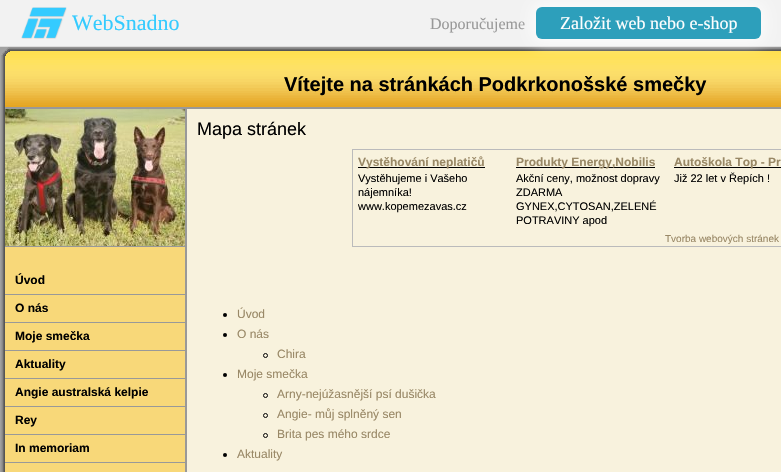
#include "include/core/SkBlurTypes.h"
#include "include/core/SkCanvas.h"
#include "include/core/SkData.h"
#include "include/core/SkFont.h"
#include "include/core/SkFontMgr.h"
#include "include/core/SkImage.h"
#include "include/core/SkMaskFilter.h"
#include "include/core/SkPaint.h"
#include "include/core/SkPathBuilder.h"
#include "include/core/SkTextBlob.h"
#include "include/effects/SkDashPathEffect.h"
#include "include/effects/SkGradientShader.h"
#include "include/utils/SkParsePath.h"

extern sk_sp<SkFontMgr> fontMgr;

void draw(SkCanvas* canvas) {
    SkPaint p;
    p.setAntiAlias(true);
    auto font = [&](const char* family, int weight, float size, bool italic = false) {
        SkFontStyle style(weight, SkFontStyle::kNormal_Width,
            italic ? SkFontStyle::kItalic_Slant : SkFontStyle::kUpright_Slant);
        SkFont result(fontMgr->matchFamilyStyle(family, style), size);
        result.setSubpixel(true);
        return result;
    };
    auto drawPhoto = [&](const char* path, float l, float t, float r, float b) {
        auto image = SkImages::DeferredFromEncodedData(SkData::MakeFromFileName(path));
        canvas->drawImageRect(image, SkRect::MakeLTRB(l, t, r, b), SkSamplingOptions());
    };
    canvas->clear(0xFFFFFFFF);
    p.setColor(0xFFF2F2F2);
    canvas->drawRect(SkRect::MakeLTRB(0, 0, 781, 46), p);
    p.setColor(0xFFDDDDDD);
    canvas->drawRect(SkRect::MakeLTRB(0, 46, 781, 47), p);
    drawPhoto("media/1.png", 21, 7, 67, 39);
    auto font1 = font("Liberation Serif", 400, 22);
    p.setColor(0xFF34CBFF);
    canvas->drawString("WebSnadno", 72, 30, font1, p);
    auto font2 = font("Liberation Serif", 400, 16);
    p.setColor(0xFF999999);
    canvas->drawString("Doporučujeme", 430, 29, font2, p);
    drawPhoto("media/2.png", 0, 47, 781, 107);
    p.setColor(0xBFFFFFFF);
    p.setMaskFilter(SkMaskFilter::MakeBlur(kNormal_SkBlurStyle, 8));
    canvas->drawRoundRect(SkRect::MakeLTRB(532, 3, 765, 43), 10, 10, p);
    p.setMaskFilter(nullptr);
    p.setColor(0xFF2D9FBB);
    canvas->drawRoundRect(SkRect::MakeLTRB(536, 7, 761, 39), 6, 6, p);
    auto font3 = font("Liberation Serif", 400, 18);
    p.setColor(0xFFFFFFFF);
    canvas->drawString("Založit web nebo e-shop", 560, 29, font3, p);
    auto font4 = font("Liberation Sans", 700, 20);
    p.setColor(0xFF000000);
    canvas->drawString("Vítejte na stránkách Podkrkonošské smečky", 284, 91, font4, p);
    drawPhoto("media/3.png", 0, 107, 5, 472);
    {
        const struct { float l, t, r, b; SkColor color; } items[] = {
            {5, 247, 185, 472, 0xFFF8D879},
            {5, 107, 781, 109, 0xFF999999},
            {185, 107, 187, 472, 0xFF999999},
        };
        for (auto [l, t, r, b, color] : items) {
            p.setColor(color);
            canvas->drawRect(SkRect::MakeLTRB(l, t, r, b), p);
        }
    }
    drawPhoto("media/4.png", 5, 109, 185, 246);
    canvas->drawRect(SkRect::MakeLTRB(5, 246, 185, 247), p);
    canvas->drawRect(SkRect::MakeLTRB(5, 294, 185, 295), p);
    auto font5 = font("Liberation Sans", 700, 12);
    p.setColor(0xFF000000);
    canvas->drawString("Úvod", 15, 284, font5, p);
    p.setColor(0xFF999999);
    canvas->drawRect(SkRect::MakeLTRB(5, 322, 185, 323), p);
    p.setColor(0xFF000000);
    canvas->drawString("O nás", 15, 312, font5, p);
    p.setColor(0xFF999999);
    canvas->drawRect(SkRect::MakeLTRB(5, 350, 185, 351), p);
    p.setColor(0xFF000000);
    canvas->drawString("Moje smečka", 15, 340, font5, p);
    p.setColor(0xFF999999);
    canvas->drawRect(SkRect::MakeLTRB(5, 378, 185, 379), p);
    p.setColor(0xFF000000);
    canvas->drawString("Aktuality", 15, 368, font5, p);
    p.setColor(0xFF999999);
    canvas->drawRect(SkRect::MakeLTRB(5, 406, 185, 407), p);
    p.setColor(0xFF000000);
    canvas->drawString("Angie australská kelpie", 15, 396, font5, p);
    p.setColor(0xFF999999);
    canvas->drawRect(SkRect::MakeLTRB(5, 434, 185, 435), p);
    p.setColor(0xFF000000);
    canvas->drawString("Rey", 15, 424, font5, p);
    p.setColor(0xFF999999);
    canvas->drawRect(SkRect::MakeLTRB(5, 462, 185, 463), p);
    p.setColor(0xFF000000);
    canvas->drawString("In memoriam", 15, 452, font5, p);
    p.setColor(0xFFF8F2DD);
    canvas->drawRect(SkRect::MakeLTRB(187, 109, 781, 472), p);
    auto font6 = font("Liberation Sans", 400, 18);
    p.setColor(0xFF000000);
    canvas->drawString("Mapa stránek", 197, 135, font6, p);
    p.setStyle(SkPaint::kStroke_Style);
    p.setStrokeWidth(1);
    p.setColor(0xFFBBBBBB);
    canvas->drawRect(SkRect::MakeLTRB(352.5f, 149.5f, 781.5f, 246.5f), p);
    p.setStyle(SkPaint::kFill_Style);
    p.setColor(0xFF000000);
    canvas->drawRect(SkRect::MakeLTRB(358, 167, 485, 168), p);
    p.setColor(0xFF998866);
    canvas->drawString("Vystěhování neplatičů", 358, 166, font5, p);
    auto font7 = font("Liberation Sans", 400, 11);
    p.setColor(0xFF000000);
    {
        const struct { const char* s; float x, y; } items[] = {
            {"Vystěhujeme i Vašeho", 358, 182},
            {"nájemníka!", 358, 196},
            {"www.kopemezavas.cz", 358, 210},
        };
        for (auto [s, x, y] : items) {
            canvas->drawString(s, x, y, font7, p);
        }
    }
    canvas->drawRect(SkRect::MakeLTRB(516, 167, 655, 168), p);
    p.setColor(0xFF998866);
    canvas->drawString("Produkty Energy,Nobilis", 516, 166, font5, p);
    p.setColor(0xFF000000);
    {
        const struct { const char* s; float x, y; } items[] = {
            {"Akční ceny, možnost dopravy", 516, 182},
            {"ZDARMA", 516, 196},
            {"GYNEX,CYTOSAN,ZELENÉ", 516, 210},
            {"POTRAVINY apod", 516, 224},
        };
        for (auto [s, x, y] : items) {
            canvas->drawString(s, x, y, font7, p);
        }
    }
    canvas->drawRect(SkRect::MakeLTRB(674, 167, 781, 168), p);
    p.setColor(0xFF998866);
    canvas->drawString("Autoškola Top - Pr", 674, 166, font5, p);
    p.setColor(0xFF000000);
    canvas->drawString("Již 22 let v Řepích !", 674, 182, font7, p);
    auto font8 = font("Liberation Sans", 400, 10);
    p.setColor(0xFF998866);
    canvas->drawString("Tvorba webových stránek", 665, 242, font8, p);
    p.setColor(0xFF000000);
    canvas->drawCircle(225, 315, 2, p);
    auto font9 = font("Liberation Sans", 400, 12);
    p.setColor(0xFF998866);
    canvas->drawString("Úvod", 237, 318, font9, p);
    p.setColor(0xFF000000);
    canvas->drawCircle(225, 335, 2, p);
    p.setColor(0xFF998866);
    canvas->drawString("O nás", 237, 338, font9, p);
    p.setStyle(SkPaint::kStroke_Style);
    p.setColor(0xFF000000);
    canvas->drawCircle(265.5f, 355.5f, 2, p);
    p.setStyle(SkPaint::kFill_Style);
    p.setColor(0xFF998866);
    canvas->drawString("Chira", 277, 358, font9, p);
    p.setColor(0xFF000000);
    canvas->drawCircle(225, 375, 2, p);
    p.setColor(0xFF998866);
    canvas->drawString("Moje smečka", 237, 378, font9, p);
    p.setStyle(SkPaint::kStroke_Style);
    p.setColor(0xFF000000);
    canvas->drawCircle(265.5f, 395.5f, 2, p);
    p.setStyle(SkPaint::kFill_Style);
    p.setColor(0xFF998866);
    canvas->drawString("Arny-nejúžasnější psí dušička", 277, 398, font9, p);
    p.setStyle(SkPaint::kStroke_Style);
    p.setColor(0xFF000000);
    canvas->drawCircle(265.5f, 415.5f, 2, p);
    p.setStyle(SkPaint::kFill_Style);
    p.setColor(0xFF998866);
    canvas->drawString("Angie- můj splněný sen", 277, 418, font9, p);
    p.setStyle(SkPaint::kStroke_Style);
    p.setColor(0xFF000000);
    canvas->drawCircle(265.5f, 435.5f, 2, p);
    p.setStyle(SkPaint::kFill_Style);
    p.setColor(0xFF998866);
    canvas->drawString("Brita pes mého srdce", 277, 438, font9, p);
    p.setColor(0xFF000000);
    canvas->drawCircle(225, 455, 2, p);
    p.setColor(0xFF998866);
    canvas->drawString("Aktuality", 237, 458, font9, p);
}
